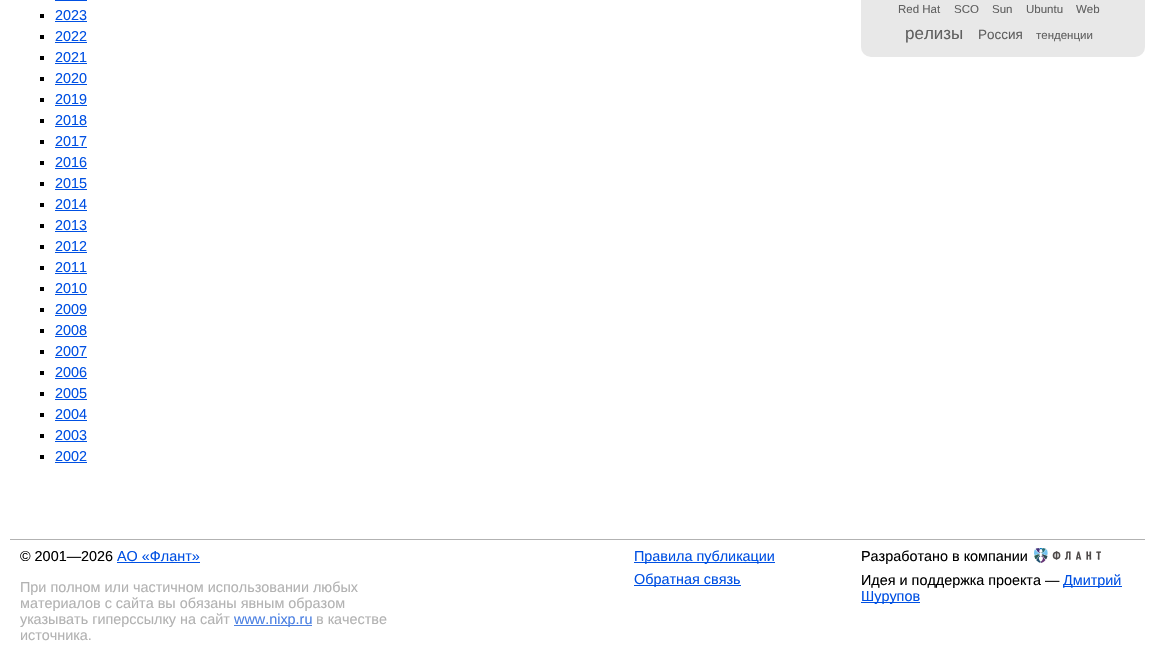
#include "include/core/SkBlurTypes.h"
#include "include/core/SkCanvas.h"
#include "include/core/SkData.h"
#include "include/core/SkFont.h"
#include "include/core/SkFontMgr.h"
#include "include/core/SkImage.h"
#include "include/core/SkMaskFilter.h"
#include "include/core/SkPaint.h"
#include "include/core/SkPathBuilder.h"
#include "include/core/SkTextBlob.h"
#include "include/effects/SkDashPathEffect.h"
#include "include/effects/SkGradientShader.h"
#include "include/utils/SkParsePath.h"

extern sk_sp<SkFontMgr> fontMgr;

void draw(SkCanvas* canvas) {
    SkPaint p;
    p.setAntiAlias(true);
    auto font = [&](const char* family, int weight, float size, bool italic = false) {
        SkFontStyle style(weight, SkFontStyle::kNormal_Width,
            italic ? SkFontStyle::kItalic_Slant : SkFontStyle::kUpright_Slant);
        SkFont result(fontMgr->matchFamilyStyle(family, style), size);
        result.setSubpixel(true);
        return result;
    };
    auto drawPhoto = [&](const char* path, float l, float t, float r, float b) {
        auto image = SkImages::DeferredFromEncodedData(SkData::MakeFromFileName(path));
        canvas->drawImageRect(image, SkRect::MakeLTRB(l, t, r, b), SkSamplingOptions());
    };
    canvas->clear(0xFFFFFFFF);
    p.setColor(0xFF0050E3);
    canvas->drawRect(SkRect::MakeLTRB(55, 0, 87, 1), p);
    p.setColor(0xFF000000);
    canvas->drawRect(SkRect::MakeLTRB(40, 14, 44, 18), p);
    auto font1 = font("Liberation Sans", 400, 14.4f);
    p.setColor(0xFF0050E3);
    canvas->drawString("2023", 55, 20, font1, p);
    canvas->drawRect(SkRect::MakeLTRB(55, 21, 87, 22), p);
    p.setColor(0xFF000000);
    canvas->drawRect(SkRect::MakeLTRB(40, 35, 44, 39), p);
    p.setColor(0xFF0050E3);
    canvas->drawString("2022", 55, 41, font1, p);
    canvas->drawRect(SkRect::MakeLTRB(55, 42, 87, 43), p);
    p.setColor(0xFF000000);
    canvas->drawRect(SkRect::MakeLTRB(40, 56, 44, 60), p);
    p.setColor(0xFF0050E3);
    canvas->drawString("2021", 55, 62, font1, p);
    canvas->drawRect(SkRect::MakeLTRB(55, 63, 87, 64), p);
    p.setColor(0xFF000000);
    canvas->drawRect(SkRect::MakeLTRB(40, 77, 44, 81), p);
    p.setColor(0xFF0050E3);
    canvas->drawString("2020", 55, 83, font1, p);
    canvas->drawRect(SkRect::MakeLTRB(55, 84, 87, 85), p);
    p.setColor(0xFF000000);
    canvas->drawRect(SkRect::MakeLTRB(40, 98, 44, 102), p);
    p.setColor(0xFF0050E3);
    canvas->drawString("2019", 55, 104, font1, p);
    canvas->drawRect(SkRect::MakeLTRB(55, 105, 87, 106), p);
    p.setColor(0xFF000000);
    canvas->drawRect(SkRect::MakeLTRB(40, 119, 44, 123), p);
    p.setColor(0xFF0050E3);
    canvas->drawString("2018", 55, 125, font1, p);
    canvas->drawRect(SkRect::MakeLTRB(55, 126, 87, 127), p);
    p.setColor(0xFF000000);
    canvas->drawRect(SkRect::MakeLTRB(40, 140, 44, 144), p);
    p.setColor(0xFF0050E3);
    canvas->drawString("2017", 55, 146, font1, p);
    canvas->drawRect(SkRect::MakeLTRB(55, 147, 87, 148), p);
    p.setColor(0xFF000000);
    canvas->drawRect(SkRect::MakeLTRB(40, 161, 44, 165), p);
    p.setColor(0xFF0050E3);
    canvas->drawString("2016", 55, 167, font1, p);
    canvas->drawRect(SkRect::MakeLTRB(55, 168, 87, 169), p);
    p.setColor(0xFF000000);
    canvas->drawRect(SkRect::MakeLTRB(40, 182, 44, 186), p);
    p.setColor(0xFF0050E3);
    canvas->drawString("2015", 55, 188, font1, p);
    canvas->drawRect(SkRect::MakeLTRB(55, 189, 87, 190), p);
    p.setColor(0xFF000000);
    canvas->drawRect(SkRect::MakeLTRB(40, 203, 44, 207), p);
    p.setColor(0xFF0050E3);
    canvas->drawString("2014", 55, 209, font1, p);
    canvas->drawRect(SkRect::MakeLTRB(55, 210, 87, 211), p);
    p.setColor(0xFF000000);
    canvas->drawRect(SkRect::MakeLTRB(40, 224, 44, 228), p);
    p.setColor(0xFF0050E3);
    canvas->drawString("2013", 55, 230, font1, p);
    canvas->drawRect(SkRect::MakeLTRB(55, 231, 87, 232), p);
    p.setColor(0xFF000000);
    canvas->drawRect(SkRect::MakeLTRB(40, 245, 44, 249), p);
    p.setColor(0xFF0050E3);
    canvas->drawString("2012", 55, 251, font1, p);
    canvas->drawRect(SkRect::MakeLTRB(55, 252, 87, 253), p);
    p.setColor(0xFF000000);
    canvas->drawRect(SkRect::MakeLTRB(40, 266, 44, 270), p);
    p.setColor(0xFF0050E3);
    canvas->drawString("2011", 55, 272, font1, p);
    canvas->drawRect(SkRect::MakeLTRB(55, 273, 87, 274), p);
    p.setColor(0xFF000000);
    canvas->drawRect(SkRect::MakeLTRB(40, 287, 44, 291), p);
    p.setColor(0xFF0050E3);
    canvas->drawString("2010", 55, 293, font1, p);
    canvas->drawRect(SkRect::MakeLTRB(55, 294, 87, 295), p);
    p.setColor(0xFF000000);
    canvas->drawRect(SkRect::MakeLTRB(40, 308, 44, 312), p);
    p.setColor(0xFF0050E3);
    canvas->drawString("2009", 55, 314, font1, p);
    canvas->drawRect(SkRect::MakeLTRB(55, 315, 87, 316), p);
    p.setColor(0xFF000000);
    canvas->drawRect(SkRect::MakeLTRB(40, 329, 44, 333), p);
    p.setColor(0xFF0050E3);
    canvas->drawString("2008", 55, 335, font1, p);
    canvas->drawRect(SkRect::MakeLTRB(55, 336, 87, 337), p);
    p.setColor(0xFF000000);
    canvas->drawRect(SkRect::MakeLTRB(40, 350, 44, 354), p);
    p.setColor(0xFF0050E3);
    canvas->drawString("2007", 55, 356, font1, p);
    canvas->drawRect(SkRect::MakeLTRB(55, 357, 87, 358), p);
    p.setColor(0xFF000000);
    canvas->drawRect(SkRect::MakeLTRB(40, 371, 44, 375), p);
    p.setColor(0xFF0050E3);
    canvas->drawString("2006", 55, 377, font1, p);
    canvas->drawRect(SkRect::MakeLTRB(55, 378, 87, 379), p);
    p.setColor(0xFF000000);
    canvas->drawRect(SkRect::MakeLTRB(40, 392, 44, 396), p);
    p.setColor(0xFF0050E3);
    canvas->drawString("2005", 55, 398, font1, p);
    canvas->drawRect(SkRect::MakeLTRB(55, 399, 87, 400), p);
    p.setColor(0xFF000000);
    canvas->drawRect(SkRect::MakeLTRB(40, 413, 44, 417), p);
    p.setColor(0xFF0050E3);
    canvas->drawString("2004", 55, 419, font1, p);
    canvas->drawRect(SkRect::MakeLTRB(55, 420, 87, 421), p);
    p.setColor(0xFF000000);
    canvas->drawRect(SkRect::MakeLTRB(40, 434, 44, 438), p);
    p.setColor(0xFF0050E3);
    canvas->drawString("2003", 55, 440, font1, p);
    canvas->drawRect(SkRect::MakeLTRB(55, 441, 87, 442), p);
    p.setColor(0xFF000000);
    canvas->drawRect(SkRect::MakeLTRB(40, 455, 44, 459), p);
    p.setColor(0xFF0050E3);
    canvas->drawString("2002", 55, 461, font1, p);
    canvas->drawRect(SkRect::MakeLTRB(55, 462, 87, 463), p);
    p.setColor(0xFFE8E8E8);
    canvas->drawRoundRect(SkRect::MakeLTRB(861, -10, 1145, 57), 10, 10, p);
    auto font2 = font("Liberation Sans", 400, 11.5f);
    p.setColor(0xFF606060);
    {
        const struct { const char* s; float x, y; } items[] = {
            {"Red Hat", 898, 13},
            {"SCO", 954, 13},
            {"Sun", 992, 13},
            {"Ubuntu", 1026, 13},
            {"Web", 1076, 13},
        };
        for (auto [s, x, y] : items) {
            canvas->drawString(s, x, y, font2, p);
        }
    }
    auto font3 = font("Liberation Sans", 400, 17);
    canvas->drawString("релизы", 905, 39, font3, p);
    auto font4 = font("Liberation Sans", 400, 13.5f);
    canvas->drawString("Россия", 978, 39, font4, p);
    canvas->drawString("тенденции", 1036, 39, font2, p);
    p.setColor(0xFFB2B2B2);
    canvas->drawRect(SkRect::MakeLTRB(10, 539, 1145, 540), p);
    p.setColor(0xFF000000);
    canvas->drawString("© 2001—2026", 20, 561, font1, p);
    p.setColor(0xFF0050E3);
    canvas->drawString("АО «Флант»", 117, 561, font1, p);
    canvas->drawRect(SkRect::MakeLTRB(117, 562, 200, 563), p);
    p.setColor(0xFFB2B2B2);
    {
        const struct { const char* s; float x, y; } items[] = {
            {"При полном или частичном использовании любых", 20, 592},
            {"материалов с сайта вы обязаны явным образом", 20, 608},
            {"указывать гиперссылку на сайт", 20, 624},
        };
        for (auto [s, x, y] : items) {
            canvas->drawString(s, x, y, font1, p);
        }
    }
    p.setColor(0xFF4B80E2);
    canvas->drawRect(SkRect::MakeLTRB(234, 625, 312, 626), p);
    canvas->drawString("www.nixp.ru", 234, 624, font1, p);
    p.setColor(0xFFB2B2B2);
    canvas->drawString("в качестве", 316, 624, font1, p);
    canvas->drawString("источника.", 20, 640, font1, p);
    p.setColor(0xFF0050E3);
    canvas->drawRect(SkRect::MakeLTRB(634, 562, 775, 563), p);
    canvas->drawString("Правила публикации", 634, 561, font1, p);
    canvas->drawRect(SkRect::MakeLTRB(634, 585, 741, 586), p);
    canvas->drawString("Обратная связь", 634, 584, font1, p);
    p.setColor(0xFF000000);
    canvas->drawString("Разработано в компании", 861, 561, font1, p);
    drawPhoto("media/1.png", 1034, 548, 1101, 563);
    canvas->drawString("Идея и поддержка проекта —", 861, 585, font1, p);
    p.setColor(0xFF0050E3);
    canvas->drawRect(SkRect::MakeLTRB(1063, 586, 1122, 587), p);
    canvas->drawString("Дмитрий", 1063, 585, font1, p);
    canvas->drawRect(SkRect::MakeLTRB(861, 602, 920, 603), p);
    canvas->drawString("Шурупов", 861, 601, font1, p);
}
